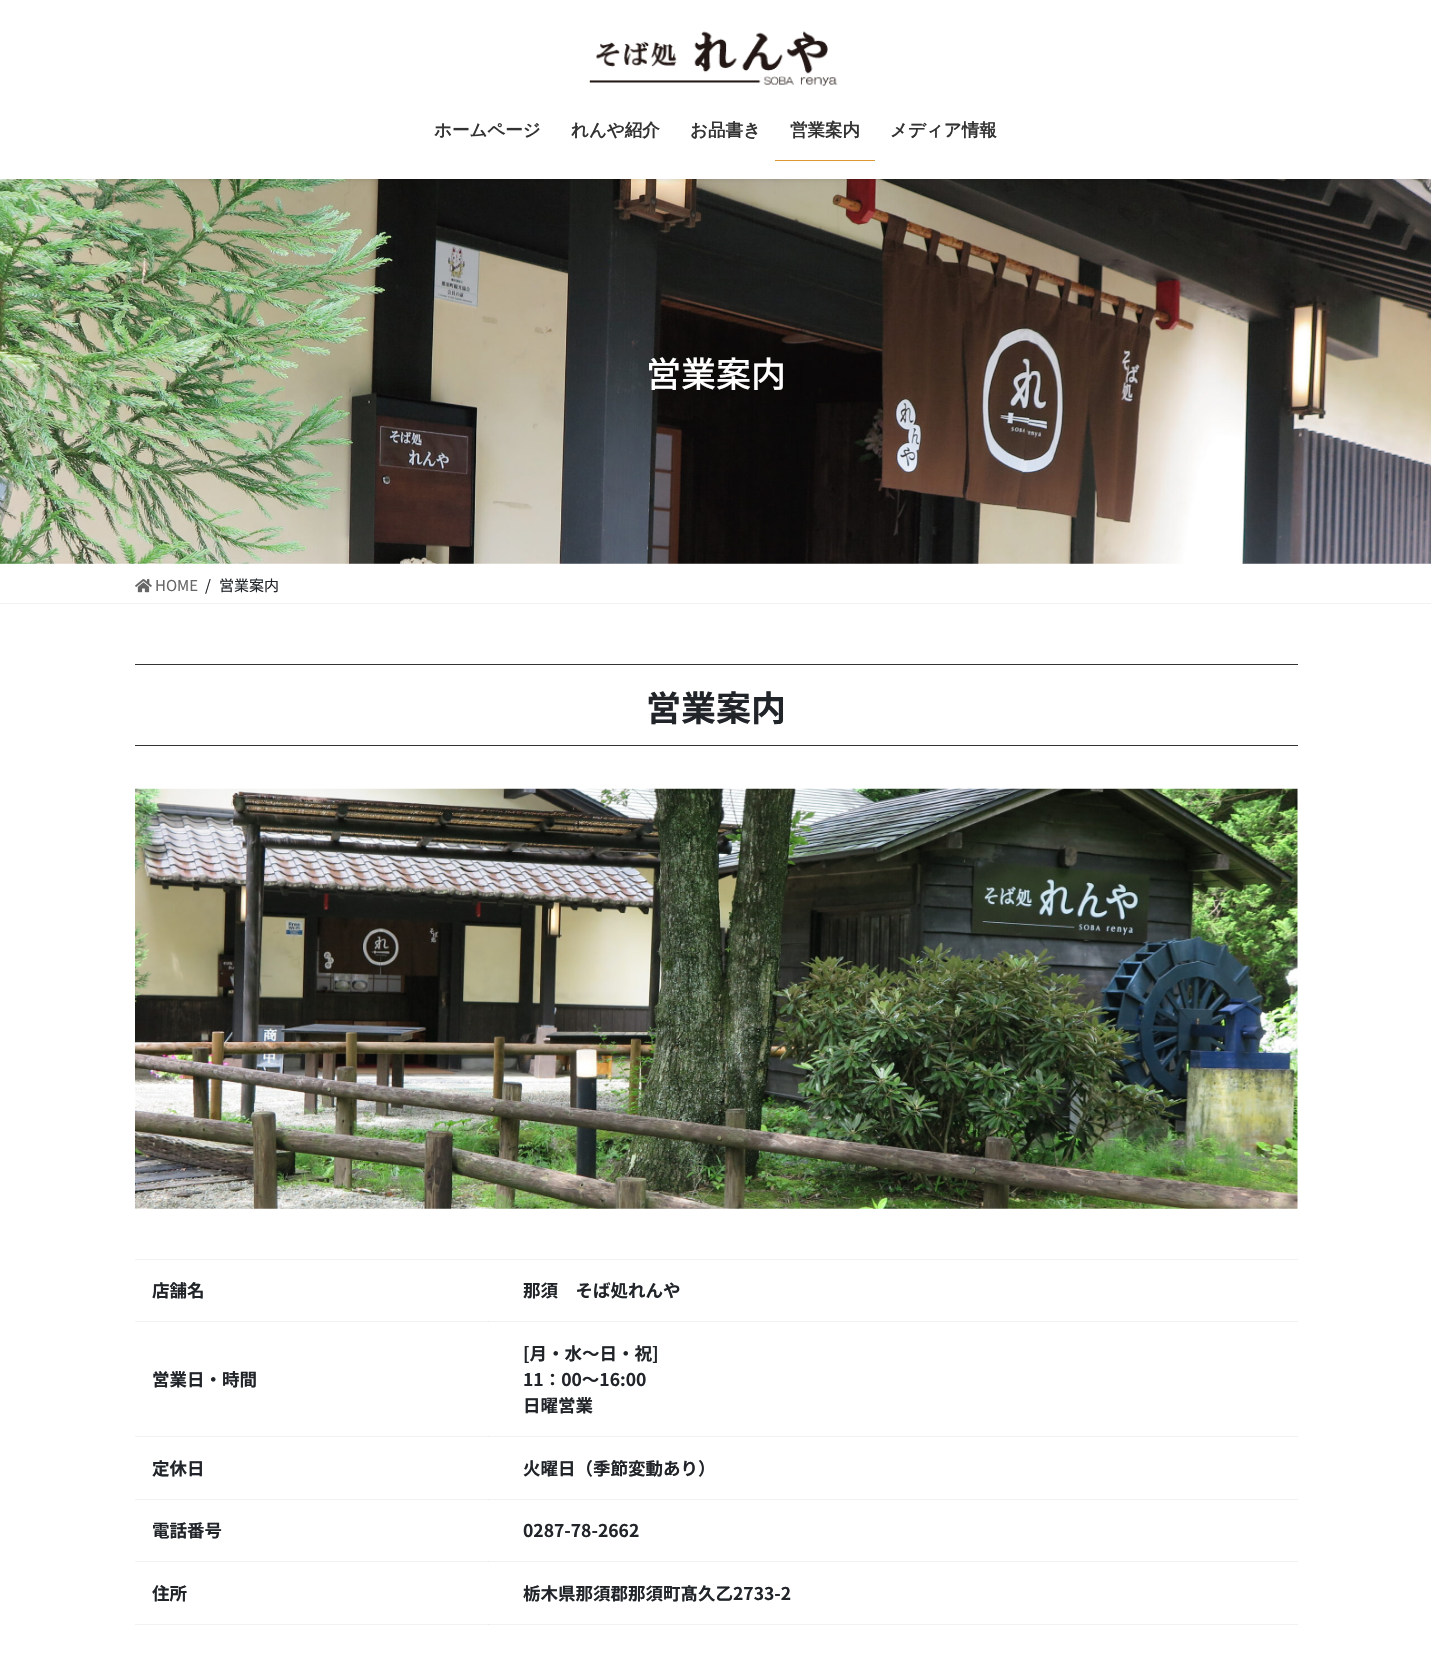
#include "include/core/SkBlurTypes.h"
#include "include/core/SkCanvas.h"
#include "include/core/SkData.h"
#include "include/core/SkFont.h"
#include "include/core/SkFontMgr.h"
#include "include/core/SkImage.h"
#include "include/core/SkMaskFilter.h"
#include "include/core/SkPaint.h"
#include "include/core/SkPathBuilder.h"
#include "include/core/SkTextBlob.h"
#include "include/effects/SkDashPathEffect.h"
#include "include/effects/SkGradientShader.h"
#include "include/utils/SkParsePath.h"

extern sk_sp<SkFontMgr> fontMgr;

void draw(SkCanvas* canvas) {
    SkPaint p;
    p.setAntiAlias(true);
    auto font = [&](const char* family, int weight, float size, bool italic = false) {
        SkFontStyle style(weight, SkFontStyle::kNormal_Width,
            italic ? SkFontStyle::kItalic_Slant : SkFontStyle::kUpright_Slant);
        SkFont result(fontMgr->matchFamilyStyle(family, style), size);
        result.setSubpixel(true);
        return result;
    };
    auto drawPhoto = [&](const char* path, float l, float t, float r, float b) {
        auto image = SkImages::DeferredFromEncodedData(SkData::MakeFromFileName(path));
        canvas->drawImageRect(image, SkRect::MakeLTRB(l, t, r, b), SkSamplingOptions());
    };
    canvas->clear(0xFFFFFFFF);
    {
        const struct { float l, t, r, b; SkColor color; } items[] = {
            {135, 1321, 1298, 1322, 0xFFF2F2F2},
            {135, 1436, 1298, 1437, 0xFFF2F2F2},
            {135, 1499, 1298, 1500, 0xFFF2F2F2},
            {135, 1561, 1298, 1562, 0xFFF2F2F2},
            {135, 1624, 1298, 1625, 0xFFF2F2F2},
        };
        for (auto [l, t, r, b, color] : items) {
            p.setColor(color);
            canvas->drawRect(SkRect::MakeLTRB(l, t, r, b), p);
        }
    }
    drawPhoto("media/2.png", 0, 179, 1431, 564);
    p.setColor(0x1A000000);
    p.setMaskFilter(SkMaskFilter::MakeBlur(kNormal_SkBlurStyle, 2));
    canvas->drawRect(SkRect::MakeLTRB(0, 1, 1431, 180), p);
    p.setMaskFilter(nullptr);
    p.setColor(0xFFFFFFFF);
    canvas->drawRect(SkRect::MakeLTRB(0, 0, 1431, 179), p);
    drawPhoto("media/1.png", 589, 31, 838, 86);
    auto font1 = font("WenQuanYi Zen Hei", 700, 17.5f);
    p.setColor(0xFF333333);
    {
        const struct { const char* s; float x, y; } items[] = {
            {"ホームページ", 434, 136},
            {"れんや紹介", 571, 136},
            {"お品書き", 690, 136},
            {"営業案内", 790, 136},
        };
        for (auto [s, x, y] : items) {
            canvas->drawString(s, x, y, font1, p);
        }
    }
    p.setColor(0xFFDD9933);
    canvas->drawRect(SkRect::MakeLTRB(775, 160, 875, 161), p);
    p.setColor(0xFF333333);
    canvas->drawString("メディア情報", 890, 136, font1, p);
    auto font2 = font("Noto Sans JP", 500, 35);
    p.setColor(0xFFFFFFFF);
    canvas->drawString("営業案内", 646, 387, font2, p);
    p.setColor(0xFFF2F2F2);
    canvas->drawRect(SkRect::MakeLTRB(0, 603, 1431, 604), p);
    drawPhoto("media/3.png", 135, 579, 152, 593);
    auto font3 = font("Noto Sans JP", 400, 15);
    p.setColor(0xFF666666);
    canvas->drawString("HOME", 155, 591, font3, p);
    p.setColor(0xFF212529);
    canvas->drawString("/", 205, 591, font3, p);
    canvas->drawString("営業案内", 219, 591, font3, p);
    p.setColor(0xFF333333);
    canvas->drawRect(SkRect::MakeLTRB(135, 664, 1298, 665), p);
    canvas->drawRect(SkRect::MakeLTRB(135, 745, 1298, 746), p);
    auto font4 = font("Noto Sans JP", 700, 35);
    p.setColor(0xFF212529);
    canvas->drawString("営業案内", 646, 721, font4, p);
    drawPhoto("media/4.png", 135, 788, 1298, 1209);
    p.setColor(0xFFF2F2F2);
    canvas->drawRect(SkRect::MakeLTRB(135, 1259, 1298, 1260), p);
    auto font5 = font("Noto Sans JP", 700, 17.5f);
    p.setColor(0xFF212529);
    canvas->drawString("店舗名", 152, 1297, font5, p);
    p.setColor(0xFFE6E6E6);
    canvas->drawRect(SkRect::MakeLTRB(488, 1321, 489, 1322), p);
    p.setColor(0xFF212529);
    canvas->drawString("那須　そば処れんや", 523, 1297, font5, p);
    canvas->drawString("営業日・時間", 152, 1386, font5, p);
    p.setColor(0xFFE6E6E6);
    canvas->drawRect(SkRect::MakeLTRB(488, 1436, 489, 1437), p);
    p.setColor(0xFF212529);
    {
        const struct { const char* s; float x, y; } items[] = {
            {"[月・水～日・祝]", 523, 1360},
            {"11：00～16:00", 523, 1386},
            {"日曜営業", 523, 1412},
            {"定休日", 152, 1475},
        };
        for (auto [s, x, y] : items) {
            canvas->drawString(s, x, y, font5, p);
        }
    }
    p.setColor(0xFFE6E6E6);
    canvas->drawRect(SkRect::MakeLTRB(488, 1499, 489, 1500), p);
    p.setColor(0xFF212529);
    canvas->drawString("火曜日（季節変動あり）", 523, 1475, font5, p);
    canvas->drawString("電話番号", 152, 1537, font5, p);
    p.setColor(0xFFE6E6E6);
    canvas->drawRect(SkRect::MakeLTRB(488, 1561, 489, 1562), p);
    p.setColor(0xFF212529);
    canvas->drawString("0287-78-2662", 523, 1537, font5, p);
    canvas->drawString("住所", 152, 1600, font5, p);
    p.setColor(0xFFE6E6E6);
    canvas->drawRect(SkRect::MakeLTRB(488, 1624, 489, 1625), p);
    p.setColor(0xFF212529);
    canvas->drawString("栃木県那須郡那須町髙久乙2733-2", 523, 1600, font5, p);
}
